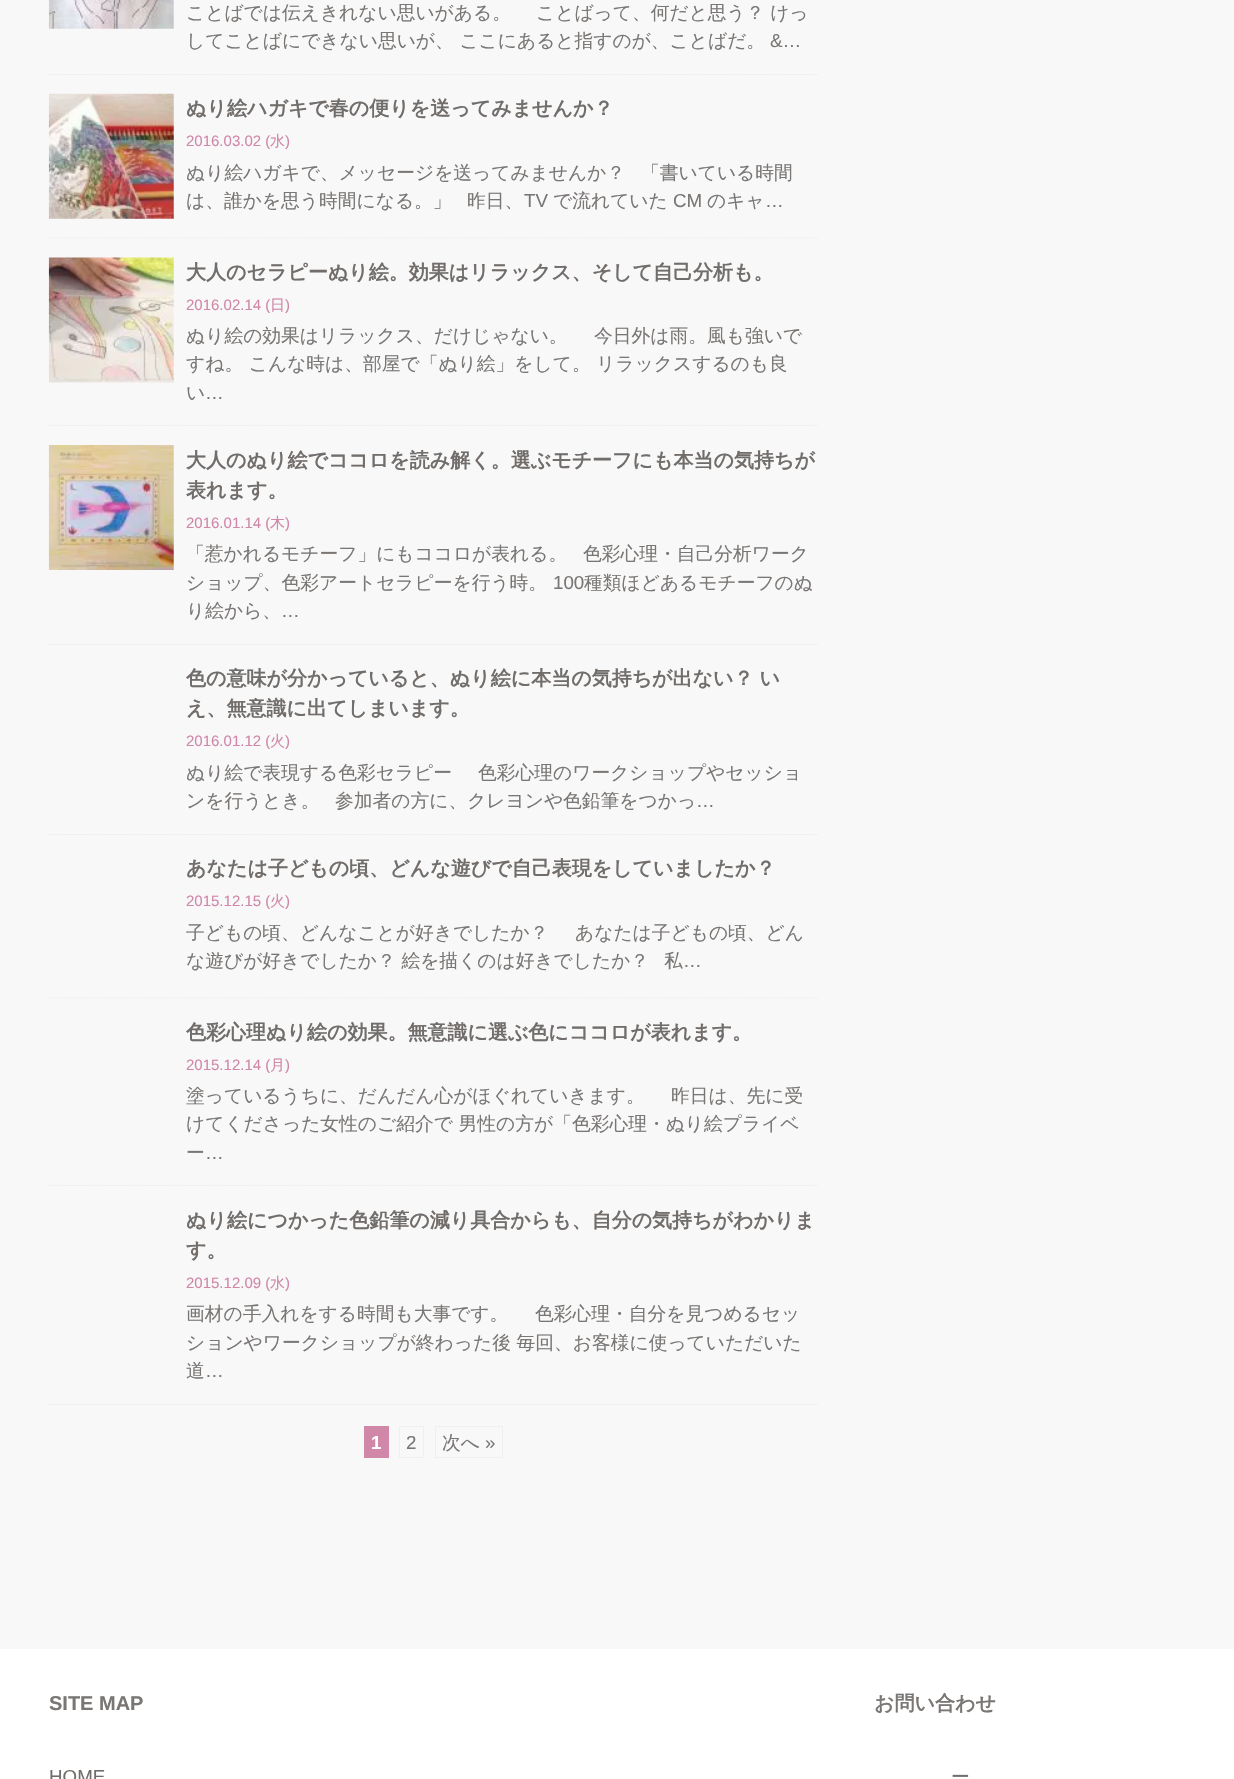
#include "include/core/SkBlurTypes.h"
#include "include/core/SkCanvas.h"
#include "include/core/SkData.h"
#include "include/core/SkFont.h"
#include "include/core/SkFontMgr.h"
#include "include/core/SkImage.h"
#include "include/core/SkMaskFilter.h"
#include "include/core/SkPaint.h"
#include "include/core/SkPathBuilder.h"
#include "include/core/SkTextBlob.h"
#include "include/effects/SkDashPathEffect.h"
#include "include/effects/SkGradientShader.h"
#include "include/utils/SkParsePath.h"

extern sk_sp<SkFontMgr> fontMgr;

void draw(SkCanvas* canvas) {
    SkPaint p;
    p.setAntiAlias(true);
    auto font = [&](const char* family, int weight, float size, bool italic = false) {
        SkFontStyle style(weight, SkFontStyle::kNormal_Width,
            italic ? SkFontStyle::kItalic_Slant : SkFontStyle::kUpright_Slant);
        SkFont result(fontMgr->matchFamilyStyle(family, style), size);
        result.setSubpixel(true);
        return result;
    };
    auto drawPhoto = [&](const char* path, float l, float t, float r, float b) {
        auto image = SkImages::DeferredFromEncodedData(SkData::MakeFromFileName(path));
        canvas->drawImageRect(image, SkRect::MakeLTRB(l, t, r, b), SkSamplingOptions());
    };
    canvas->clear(0xFFF8F8F8);
    p.setStyle(SkPaint::kStroke_Style);
    p.setStrokeWidth(1.2f);
    p.setColor(0xFFE8E8E8);
    p.setPathEffect(SkDashPathEffect::Make({{1.25f, 1.25f}}, 0));
    canvas->drawPath(SkPathBuilder().moveTo(49, 74.5f).lineTo(817.5f, 74.5f).detach(), p);
    p.setPathEffect(nullptr);
    drawPhoto("media/1.png", 48, 0, 174, 29);
    auto font1 = font("WenQuanYi Zen Hei", 500, 18.75f);
    p.setStyle(SkPaint::kFill_Style);
    p.setColor(0xFF797674);
    {
        const struct { const char* s; float x, y; } items[] = {
            {"ことばでは伝えきれない思いがある。", 186, 19},
            {"ことばって、何だと思う？ けっ", 536, 19},
            {"してことばにできない思いが、 ここにあると指すのが、ことばだ。", 186, 47},
        };
        for (auto [s, x, y] : items) {
            canvas->drawString(s, x, y, font1, p);
        }
    }
    auto font2 = font("Liberation Sans", 400, 18.75f);
    canvas->drawString("&…", 770, 47, font2, p);
    p.setStyle(SkPaint::kStroke_Style);
    p.setColor(0xFFE8E8E8);
    p.setPathEffect(SkDashPathEffect::Make({{1.25f, 1.25f}}, 0));
    canvas->drawPath(SkPathBuilder().moveTo(49, 238).lineTo(817.5f, 238).detach(), p);
    p.setPathEffect(nullptr);
    drawPhoto("media/2.png", 48, 93, 174, 219);
    auto font3 = font("WenQuanYi Zen Hei", 700, 20);
    p.setStyle(SkPaint::kFill_Style);
    p.setColor(0xFF716D6B);
    canvas->drawString("ぬり絵ハガキで春の便りを送ってみませんか？", 186, 115, font3, p);
    auto font4 = font("Liberation Sans", 400, 15);
    p.setColor(0xFFD087A8);
    canvas->drawString("2016.03.02 (", 186, 146, font4, p);
    auto font5 = font("WenQuanYi Zen Hei", 500, 15);
    canvas->drawString("水", 270, 146, font5, p);
    canvas->drawString(")", 285, 146, font4, p);
    p.setColor(0xFF797674);
    {
        const struct { const char* s; float x, y; } items[] = {
            {"ぬり絵ハガキで、メッセージを送ってみませんか？", 186, 179},
            {"「書いている時間", 641, 179},
            {"は、誰かを思う時間になる。」", 186, 207},
            {"昨日、", 467, 207},
        };
        for (auto [s, x, y] : items) {
            canvas->drawString(s, x, y, font1, p);
        }
    }
    canvas->drawString("TV", 524, 207, font2, p);
    canvas->drawString("で流れていた", 553, 207, font1, p);
    canvas->drawString("CM", 673, 207, font2, p);
    canvas->drawString("のキャ", 707, 207, font1, p);
    canvas->drawString("…", 765, 207, font2, p);
    p.setStyle(SkPaint::kStroke_Style);
    p.setColor(0xFFE8E8E8);
    p.setPathEffect(SkDashPathEffect::Make({{1.25f, 1.25f}}, 0));
    canvas->drawPath(SkPathBuilder().moveTo(49, 425.5f).lineTo(817.5f, 425.5f).detach(), p);
    p.setPathEffect(nullptr);
    drawPhoto("media/3.png", 48, 257, 174, 383);
    p.setStyle(SkPaint::kFill_Style);
    p.setColor(0xFF716D6B);
    canvas->drawString("大人のセラピーぬり絵。効果はリラックス、そして自己分析も。", 186, 279, font3, p);
    p.setColor(0xFFD087A8);
    canvas->drawString("2016.02.14 (", 186, 310, font4, p);
    canvas->drawString("日", 270, 310, font5, p);
    canvas->drawString(")", 285, 310, font4, p);
    p.setColor(0xFF797674);
    {
        const struct { const char* s; float x, y; } items[] = {
            {"ぬり絵の効果はリラックス、だけじゃない。", 186, 342},
            {"今日外は雨。風も強いで", 594, 342},
            {"すね。 こんな時は、部屋で「ぬり絵」をして。 リラックスするのも良", 186, 370},
            {"い", 186, 399},
        };
        for (auto [s, x, y] : items) {
            canvas->drawString(s, x, y, font1, p);
        }
    }
    canvas->drawString("…", 205, 399, font2, p);
    p.setStyle(SkPaint::kStroke_Style);
    p.setColor(0xFFE8E8E8);
    p.setPathEffect(SkDashPathEffect::Make({{1.25f, 1.25f}}, 0));
    canvas->drawPath(SkPathBuilder().moveTo(49, 644.5f).lineTo(817.5f, 644.5f).detach(), p);
    p.setPathEffect(nullptr);
    drawPhoto("media/4.png", 48, 445, 174, 570);
    p.setStyle(SkPaint::kFill_Style);
    p.setColor(0xFF716D6B);
    canvas->drawString("大人のぬり絵でココロを読み解く。選ぶモチーフにも本当の気持ちが", 186, 467, font3, p);
    canvas->drawString("表れます。", 186, 497, font3, p);
    p.setColor(0xFFD087A8);
    canvas->drawString("2016.01.14 (", 186, 528, font4, p);
    canvas->drawString("木", 270, 528, font5, p);
    canvas->drawString(")", 285, 528, font4, p);
    p.setColor(0xFF797674);
    {
        const struct { const char* s; float x, y; } items[] = {
            {"「惹かれるモチーフ」にもココロが表れる。", 186, 560},
            {"色彩心理・自己分析ワーク", 583, 560},
            {"ショップ、色彩アートセラピーを行う時。", 186, 589},
        };
        for (auto [s, x, y] : items) {
            canvas->drawString(s, x, y, font1, p);
        }
    }
    canvas->drawString("100", 553, 589, font2, p);
    canvas->drawString("種類ほどあるモチーフのぬ", 584, 589, font1, p);
    canvas->drawString("り絵から、", 186, 617, font1, p);
    canvas->drawString("…", 281, 617, font2, p);
    p.setStyle(SkPaint::kStroke_Style);
    p.setColor(0xFFE8E8E8);
    p.setPathEffect(SkDashPathEffect::Make({{1.25f, 1.25f}}, 0));
    canvas->drawPath(SkPathBuilder().moveTo(49, 834.5f).lineTo(817.5f, 834.5f).detach(), p);
    p.setPathEffect(nullptr);
    p.setStyle(SkPaint::kFill_Style);
    p.setColor(0xFF716D6B);
    canvas->drawString("色の意味が分かっていると、ぬり絵に本当の気持ちが出ない？ い", 186, 685, font3, p);
    canvas->drawString("え、無意識に出てしまいます。", 186, 715, font3, p);
    p.setColor(0xFFD087A8);
    canvas->drawString("2016.01.12 (", 186, 746, font4, p);
    canvas->drawString("火", 270, 746, font5, p);
    canvas->drawString(")", 285, 746, font4, p);
    p.setColor(0xFF797674);
    {
        const struct { const char* s; float x, y; } items[] = {
            {"ぬり絵で表現する色彩セラピー", 186, 779},
            {"色彩心理のワークショップやセッショ", 478, 779},
            {"ンを行うとき。", 186, 807},
            {"参加者の方に、クレヨンや色鉛筆をつかっ", 335, 807},
        };
        for (auto [s, x, y] : items) {
            canvas->drawString(s, x, y, font1, p);
        }
    }
    canvas->drawString("…", 696, 807, font2, p);
    p.setStyle(SkPaint::kStroke_Style);
    p.setColor(0xFFE8E8E8);
    p.setPathEffect(SkDashPathEffect::Make({{1.25f, 1.25f}}, 0));
    canvas->drawPath(SkPathBuilder().moveTo(49, 998).lineTo(817.5f, 998).detach(), p);
    p.setPathEffect(nullptr);
    p.setStyle(SkPaint::kFill_Style);
    p.setColor(0xFF716D6B);
    canvas->drawString("あなたは子どもの頃、どんな遊びで自己表現をしていましたか？", 186, 875, font3, p);
    p.setColor(0xFFD087A8);
    canvas->drawString("2015.12.15 (", 186, 906, font4, p);
    canvas->drawString("火", 270, 906, font5, p);
    canvas->drawString(")", 285, 906, font4, p);
    p.setColor(0xFF797674);
    {
        const struct { const char* s; float x, y; } items[] = {
            {"子どもの頃、どんなことが好きでしたか？", 186, 939},
            {"あなたは子どもの頃、どん", 575, 939},
            {"な遊びが好きでしたか？ 絵を描くのは好きでしたか？", 186, 967},
            {"私", 664, 967},
        };
        for (auto [s, x, y] : items) {
            canvas->drawString(s, x, y, font1, p);
        }
    }
    canvas->drawString("…", 683, 967, font2, p);
    p.setStyle(SkPaint::kStroke_Style);
    p.setColor(0xFFE8E8E8);
    p.setPathEffect(SkDashPathEffect::Make({{1.25f, 1.25f}}, 0));
    canvas->drawPath(SkPathBuilder().moveTo(49, 1185.5f).lineTo(817.5f, 1185.5f).detach(), p);
    p.setPathEffect(nullptr);
    p.setStyle(SkPaint::kFill_Style);
    p.setColor(0xFF716D6B);
    canvas->drawString("色彩心理ぬり絵の効果。無意識に選ぶ色にココロが表れます。", 186, 1039, font3, p);
    p.setColor(0xFFD087A8);
    canvas->drawString("2015.12.14 (", 186, 1070, font4, p);
    canvas->drawString("月", 270, 1070, font5, p);
    canvas->drawString(")", 285, 1070, font4, p);
    p.setColor(0xFF797674);
    {
        const struct { const char* s; float x, y; } items[] = {
            {"塗っているうちに、だんだん心がほぐれていきます。", 186, 1102},
            {"昨日は、先に受", 671, 1102},
            {"けてくださった女性のご紹介で 男性の方が「色彩心理・ぬり絵プライベ", 186, 1130},
            {"ー", 186, 1159},
        };
        for (auto [s, x, y] : items) {
            canvas->drawString(s, x, y, font1, p);
        }
    }
    canvas->drawString("…", 205, 1159, font2, p);
    p.setStyle(SkPaint::kStroke_Style);
    p.setColor(0xFFE8E8E8);
    p.setPathEffect(SkDashPathEffect::Make({{1.25f, 1.25f}}, 0));
    canvas->drawPath(SkPathBuilder().moveTo(49, 1404.5f).lineTo(817.5f, 1404.5f).detach(), p);
    p.setPathEffect(nullptr);
    p.setStyle(SkPaint::kFill_Style);
    p.setColor(0xFF716D6B);
    canvas->drawString("ぬり絵につかった色鉛筆の減り具合からも、自分の気持ちがわかりま", 186, 1227, font3, p);
    canvas->drawString("す。", 186, 1257, font3, p);
    p.setColor(0xFFD087A8);
    canvas->drawString("2015.12.09 (", 186, 1288, font4, p);
    canvas->drawString("水", 270, 1288, font5, p);
    canvas->drawString(")", 285, 1288, font4, p);
    p.setColor(0xFF797674);
    {
        const struct { const char* s; float x, y; } items[] = {
            {"画材の手入れをする時間も大事です。", 186, 1320},
            {"色彩心理・自分を見つめるセッ", 535, 1320},
            {"ションやワークショップが終わった後 毎回、お客様に使っていただいた", 186, 1349},
            {"道", 186, 1377},
        };
        for (auto [s, x, y] : items) {
            canvas->drawString(s, x, y, font1, p);
        }
    }
    canvas->drawString("…", 205, 1377, font2, p);
    p.setColor(0xFFD187A8);
    canvas->drawRect(SkRect::MakeLTRB(364, 1426, 389, 1458), p);
    auto font6 = font("Liberation Sans", 700, 18.75f);
    p.setColor(0xFFFFFFFF);
    canvas->drawString("1", 371, 1449, font6, p);
    p.setStyle(SkPaint::kStroke_Style);
    p.setStrokeWidth(1);
    p.setColor(0xFFEFEFEF);
    canvas->drawRect(SkRect::MakeLTRB(399.5f, 1426.5f, 423.5f, 1457.5f), p);
    p.setStyle(SkPaint::kFill_Style);
    p.setColor(0xFF797674);
    canvas->drawString("2", 406, 1449, font2, p);
    p.setStyle(SkPaint::kStroke_Style);
    p.setColor(0xFFEFEFEF);
    canvas->drawRect(SkRect::MakeLTRB(435.5f, 1426.5f, 502.5f, 1457.5f), p);
    p.setStyle(SkPaint::kFill_Style);
    p.setColor(0xFF797674);
    canvas->drawString("次へ", 442, 1449, font1, p);
    canvas->drawString("»", 485, 1449, font2, p);
    p.setColor(0xFFFFFFFF);
    canvas->drawRect(SkRect::MakeLTRB(0, 1649, 1234, 1779), p);
    auto font7 = font("Liberation Sans", 700, 20);
    p.setColor(0xFF797674);
    canvas->drawString("SITE MAP", 49, 1710, font7, p);
    p.setColor(0xFF716D6B);
    canvas->drawString("HOME", 49, 1783, font2, p);
    p.setColor(0xFF797674);
    canvas->drawString("お問い合わせ", 874, 1710, font3, p);
    p.setColor(0xFF716D6B);
    canvas->drawString("ー", 951, 1783, font1, p);
}
